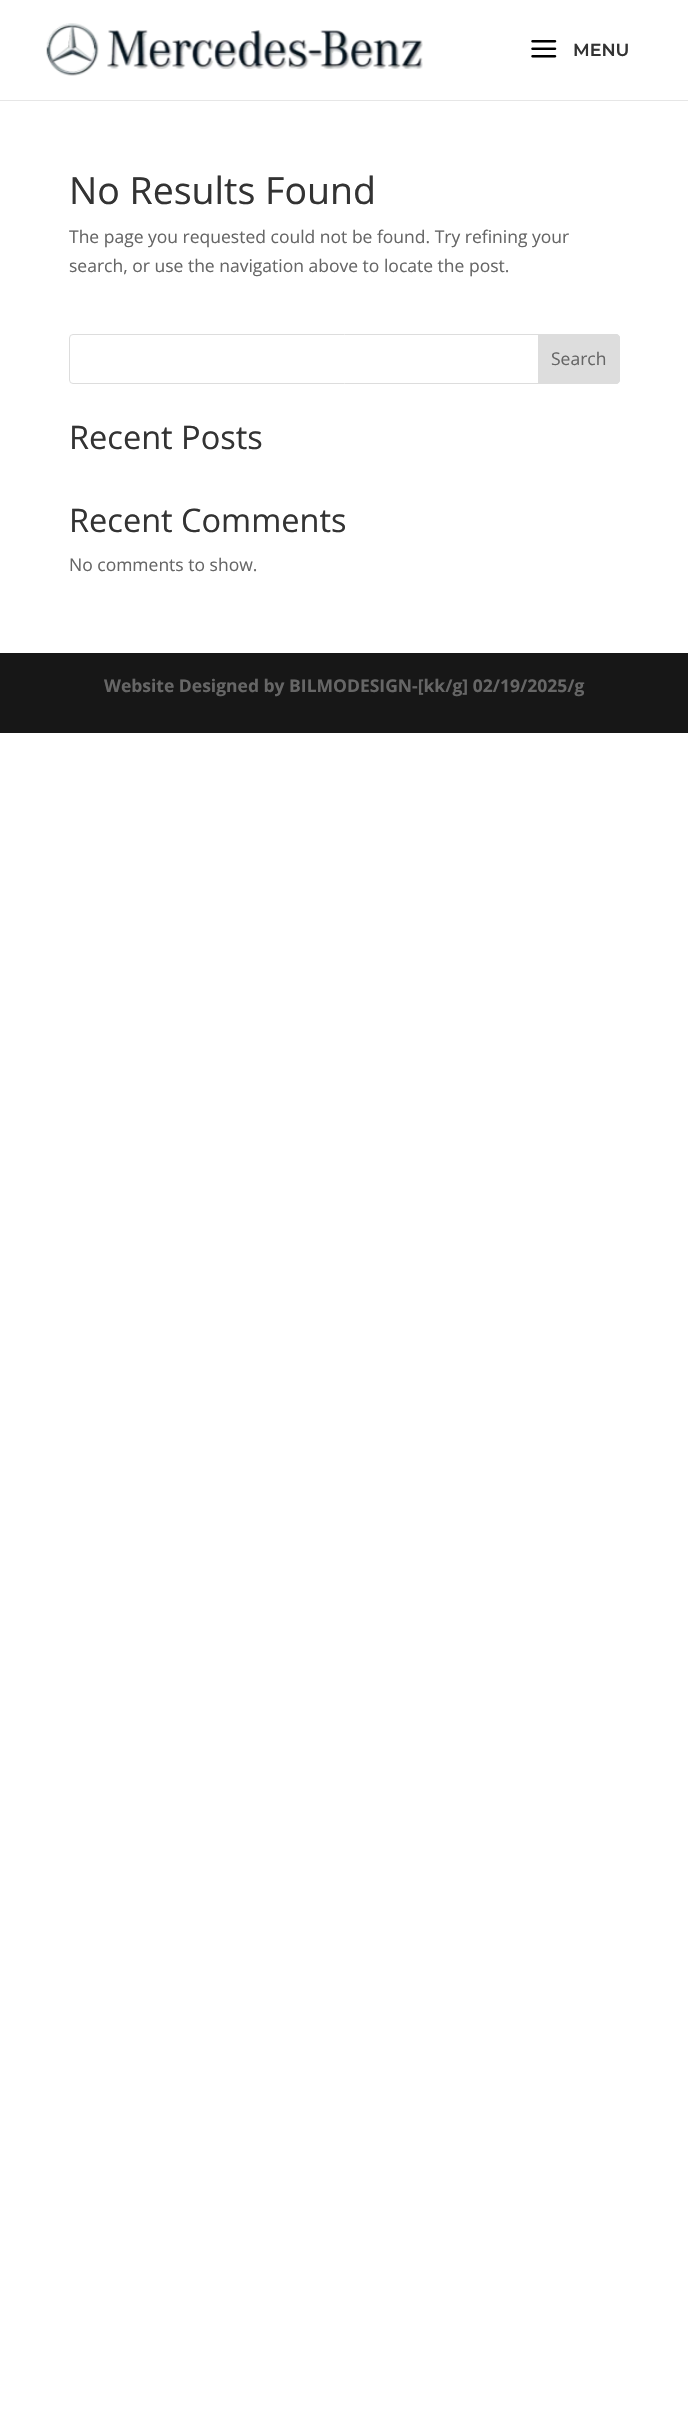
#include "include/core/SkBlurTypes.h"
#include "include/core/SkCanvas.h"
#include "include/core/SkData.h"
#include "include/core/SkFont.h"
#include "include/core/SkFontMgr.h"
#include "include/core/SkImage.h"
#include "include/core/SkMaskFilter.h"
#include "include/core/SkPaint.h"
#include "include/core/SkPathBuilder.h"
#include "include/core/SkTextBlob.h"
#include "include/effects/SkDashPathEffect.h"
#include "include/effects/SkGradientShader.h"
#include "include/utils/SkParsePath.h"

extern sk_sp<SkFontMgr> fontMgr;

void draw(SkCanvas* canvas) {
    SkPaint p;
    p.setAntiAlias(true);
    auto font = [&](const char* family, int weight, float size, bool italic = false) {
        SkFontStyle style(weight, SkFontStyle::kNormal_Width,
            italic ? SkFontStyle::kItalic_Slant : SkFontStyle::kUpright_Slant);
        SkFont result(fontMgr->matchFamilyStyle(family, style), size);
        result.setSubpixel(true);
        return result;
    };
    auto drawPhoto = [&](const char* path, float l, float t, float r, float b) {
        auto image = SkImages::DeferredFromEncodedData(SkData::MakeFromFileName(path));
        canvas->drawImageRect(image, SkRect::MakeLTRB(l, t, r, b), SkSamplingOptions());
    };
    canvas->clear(0xFFFFFFFF);
    p.setColor(0xFFE6E6E6);
    canvas->drawPath(SkPathBuilder().moveTo(0, 100).lineTo(0, 101).lineTo(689, 101).lineTo(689, 1).lineTo(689, 100).close().detach(), p);
    drawPhoto("media/1.png", 46, 23, 423, 76);
    drawPhoto("media/2.png", 531, 40, 557, 58);
    auto font1 = font("Montserrat", 600, 17.5f);
    p.setColor(0xFF333333);
    canvas->drawString("MENU", 573, 56, font1, p);
    auto font2 = font("Open Sans", 400, 37.5f);
    canvas->drawString("No Results Found", 69, 204, font2, p);
    auto font3 = font("Open Sans", 400, 17.5f);
    p.setColor(0xFF666666);
    canvas->drawString("The page you requested could not be found. Try refining your", 69, 243, font3, p);
    canvas->drawString("search, or use the navigation above to locate the post.", 69, 272, font3, p);
    p.setStyle(SkPaint::kStroke_Style);
    p.setStrokeWidth(1);
    p.setColor(0xFFDDDDDD);
    canvas->drawRoundRect(SkRect::MakeLTRB(69.5f, 334.5f, 619.5f, 383.5f), 3.5f, 3.5f, p);
    p.setStyle(SkPaint::kFill_Style);
    canvas->drawPath(SkPathBuilder().moveTo(538.5f, 334.5f).lineTo(616, 334.5f).cubicTo(618, 334.5f, 619.5f, 336, 619.5f, 338).lineTo(619.5f, 380).cubicTo(619.5f, 382, 618, 383.5f, 616, 383.5f).lineTo(538.5f, 383.5f).close().detach(), p);
    p.setStyle(SkPaint::kStroke_Style);
    canvas->drawPath(SkPathBuilder().moveTo(538.5f, 334.5f).lineTo(616, 334.5f).cubicTo(618, 334.5f, 619.5f, 336, 619.5f, 338).lineTo(619.5f, 380).cubicTo(619.5f, 382, 618, 383.5f, 616, 383.5f).lineTo(538.5f, 383.5f).close().detach(), p);
    p.setStyle(SkPaint::kFill_Style);
    p.setColor(0xFF666666);
    canvas->drawString("Search", 551, 365, font3, p);
    auto font4 = font("Open Sans", 400, 32.5f);
    p.setColor(0xFF333333);
    canvas->drawString("Recent Posts", 69, 449, font4, p);
    canvas->drawString("Recent Comments", 69, 532, font4, p);
    p.setColor(0xFF666666);
    canvas->drawString("No comments to show.", 69, 571, font3, p);
    p.setColor(0xFF171717);
    canvas->drawRect(SkRect::MakeLTRB(0, 653, 688, 733), p);
    auto font5 = font("Open Sans", 700, 17.5f);
    p.setColor(0xFF666666);
    canvas->drawString("Website Designed by BILMODESIGN-[kk/g] 02/19/2025/g", 104, 692, font5, p);
}
